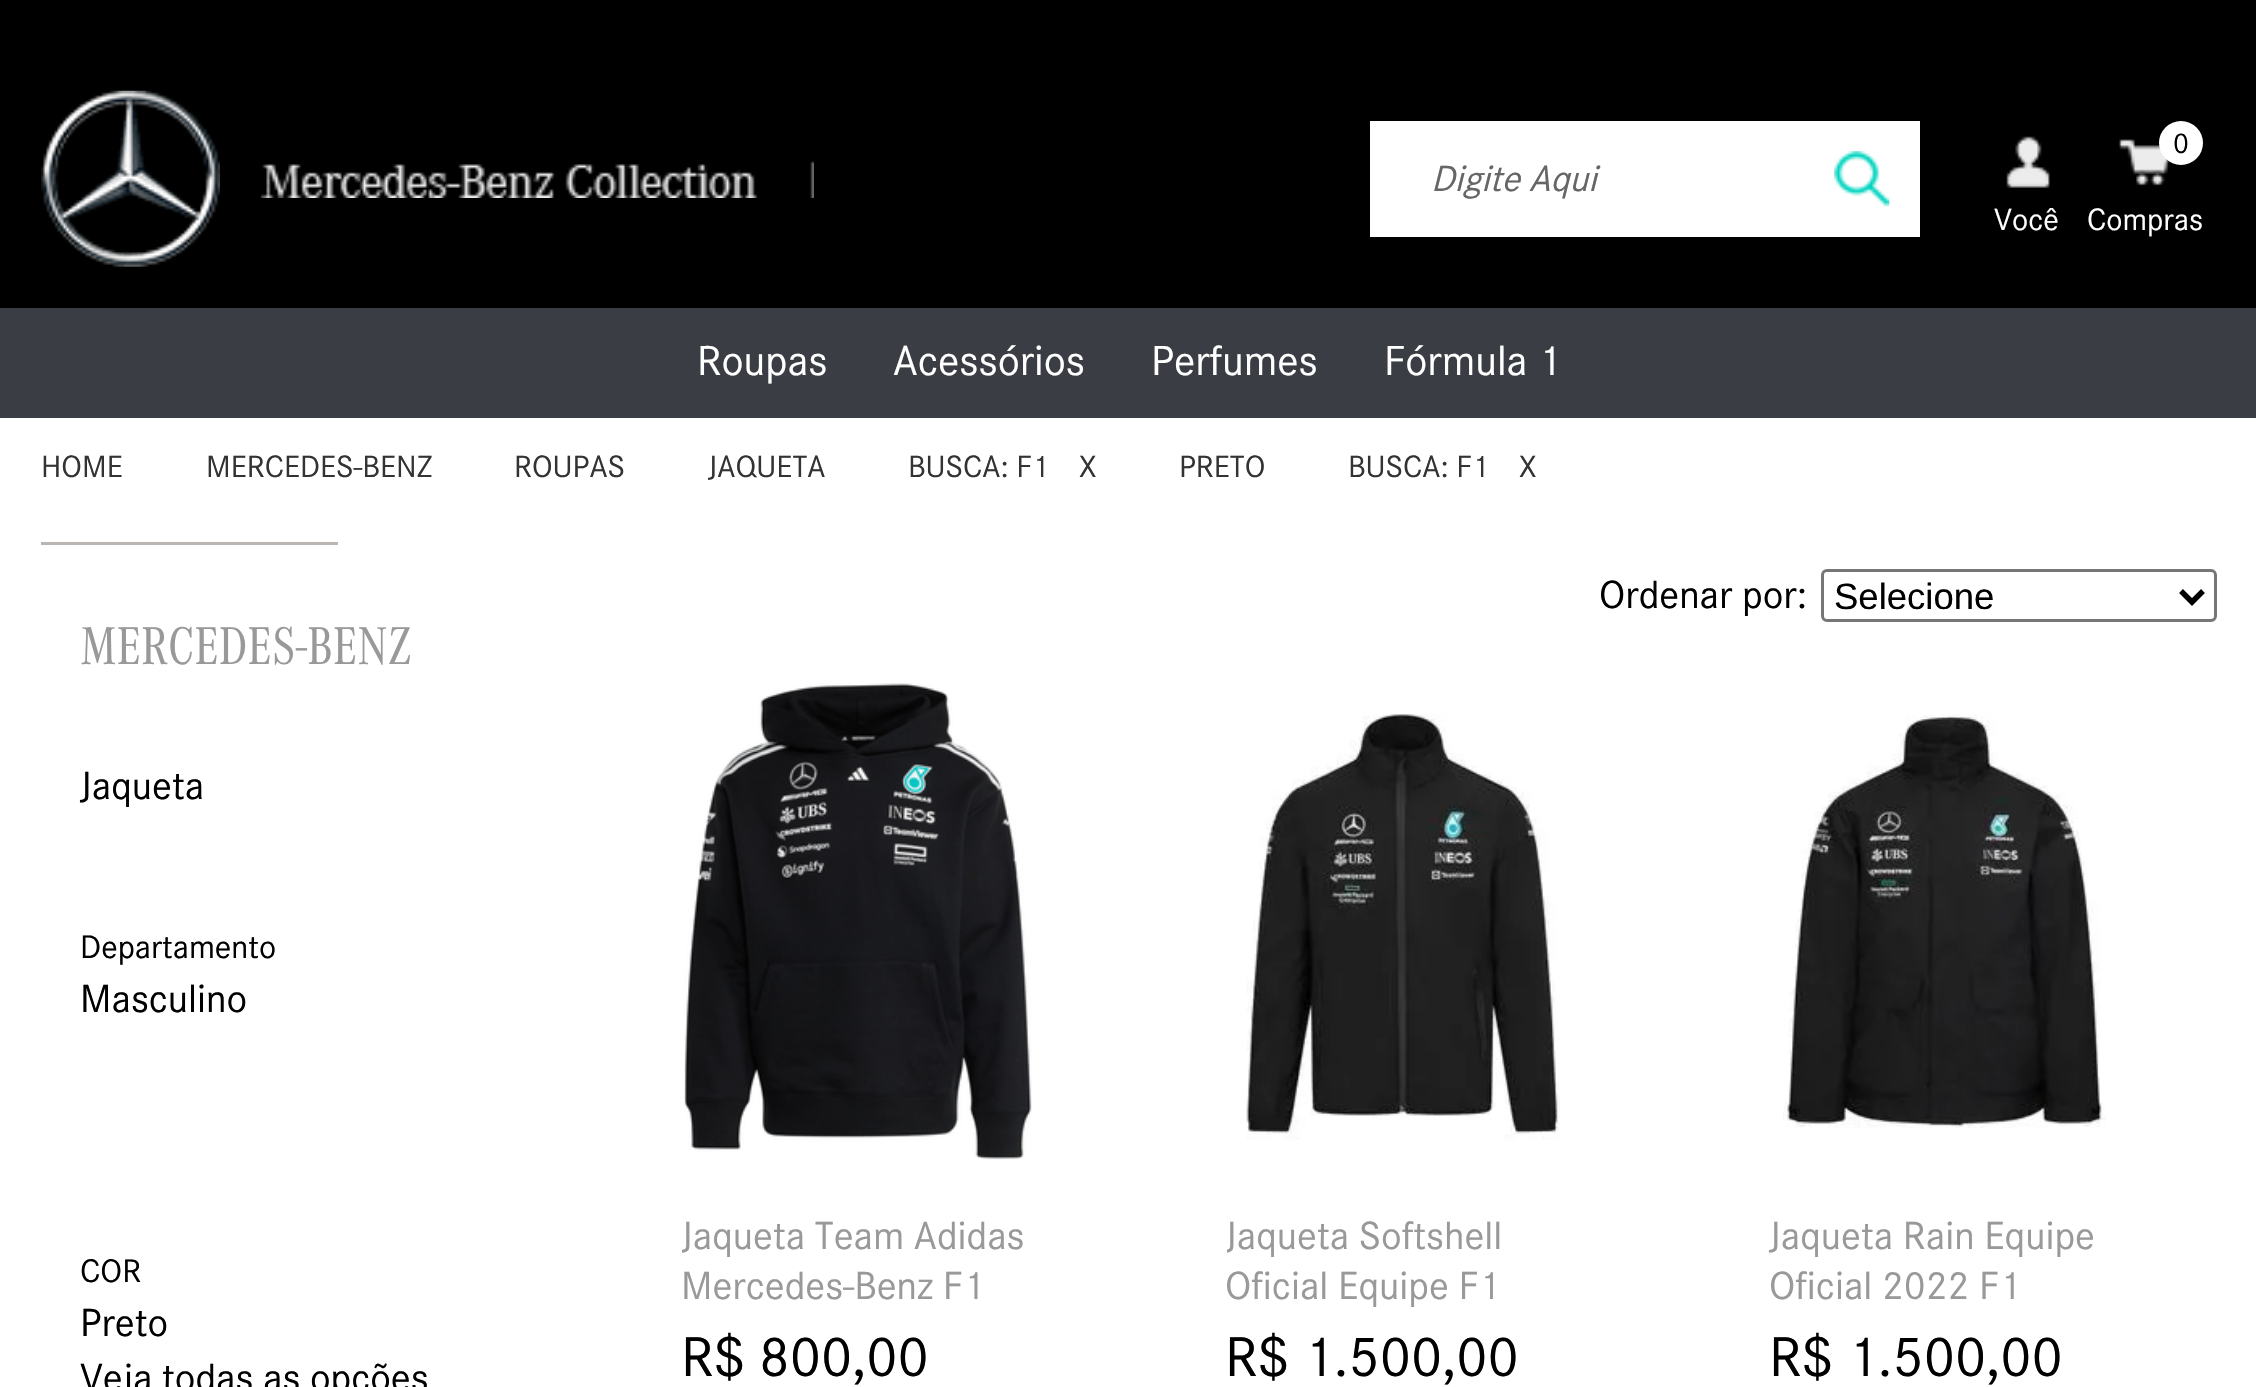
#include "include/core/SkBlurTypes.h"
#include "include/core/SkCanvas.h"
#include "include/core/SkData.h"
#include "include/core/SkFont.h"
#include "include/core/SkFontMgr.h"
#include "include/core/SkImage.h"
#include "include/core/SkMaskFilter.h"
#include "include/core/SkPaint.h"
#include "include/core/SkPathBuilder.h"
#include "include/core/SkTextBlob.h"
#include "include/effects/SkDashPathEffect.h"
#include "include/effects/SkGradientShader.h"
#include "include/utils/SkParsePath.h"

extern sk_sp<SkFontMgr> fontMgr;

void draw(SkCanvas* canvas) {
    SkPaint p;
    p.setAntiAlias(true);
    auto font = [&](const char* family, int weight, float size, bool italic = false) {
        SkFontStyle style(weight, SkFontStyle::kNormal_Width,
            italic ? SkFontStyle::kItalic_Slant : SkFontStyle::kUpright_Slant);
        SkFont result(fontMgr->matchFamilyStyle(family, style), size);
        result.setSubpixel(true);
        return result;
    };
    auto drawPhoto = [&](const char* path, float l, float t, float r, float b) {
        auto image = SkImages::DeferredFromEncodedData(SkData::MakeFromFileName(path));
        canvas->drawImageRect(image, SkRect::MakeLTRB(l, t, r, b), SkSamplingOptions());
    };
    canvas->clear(0xFFFFFFFF);
    p.setColor(0xFF000000);
    canvas->drawRect(SkRect::MakeLTRB(0, 0, 2256, 308), p);
    drawPhoto("media/1.png", 41, 90, 220, 267);
    drawPhoto("media/2.png", 261, 161, 814, 198);
    p.setColor(0xFFFFFFFF);
    canvas->drawRect(SkRect::MakeLTRB(1370, 121, 1920, 237), p);
    auto font1 = font("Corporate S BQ", 400, 35.75f, true);
    p.setColor(0xFF666666);
    canvas->drawString("Digite Aqui", 1431, 191, font1, p);
    drawPhoto("media/3.png", 1834, 151, 1890, 207);
    drawPhoto("media/4.png", 2006, 136, 2050, 188);
    auto font2 = font("Corporate S BQ", 400, 30.25f);
    p.setColor(0xFFFFFFFF);
    canvas->drawString("Você", 1994, 230, font2, p);
    drawPhoto("media/5.png", 2119, 139, 2170, 186);
    canvas->drawCircle(2181, 143, 22, p);
    auto font3 = font("Corporate S BQ", 400, 28);
    p.setColor(0xFF000000);
    canvas->drawString("0", 2173, 153, font3, p);
    p.setColor(0xFFFFFFFF);
    canvas->drawString("Compras", 2087, 230, font2, p);
    p.setColor(0xFF3A3D43);
    canvas->drawRect(SkRect::MakeLTRB(0, 308, 2256, 418), p);
    auto font4 = font("Corporate S BQ", 400, 41.25f);
    p.setColor(0xFFFFFFFF);
    {
        const struct { const char* s; float x, y; } items[] = {
            {"Roupas", 697, 375},
            {"Acessórios", 893, 375},
            {"Perfumes", 1151, 375},
            {"Fórmula 1", 1384, 375},
        };
        for (auto [s, x, y] : items) {
            canvas->drawString(s, x, y, font4, p);
        }
    }
    p.setColor(0xFF333333);
    {
        const struct { const char* s; float x, y; } items[] = {
            {"HOME", 41, 477},
            {"MERCEDES-BENZ", 206, 477},
            {"ROUPAS", 514, 477},
            {"JAQUETA", 708, 477},
            {"BUSCA: F1", 908, 477},
            {"X", 1079, 477},
            {"PRETO", 1179, 477},
            {"BUSCA: F1", 1348, 477},
            {"X", 1519, 477},
        };
        for (auto [s, x, y] : items) {
            canvas->drawString(s, x, y, font2, p);
        }
    }
    p.setColor(0xFFBBB6B2);
    canvas->drawRect(SkRect::MakeLTRB(41, 542, 338, 545), p);
    auto font5 = font("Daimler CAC", 400, 55);
    p.setColor(0xFF999999);
    canvas->drawString("MERCEDES-BENZ", 80, 664, font5, p);
    auto font6 = font("Corporate S BQ", 400, 38.5f);
    p.setColor(0xFF000000);
    canvas->drawString("Jaqueta", 80, 799, font6, p);
    auto font7 = font("Corporate S BQ", 400, 32);
    canvas->drawString("Departamento", 80, 958, font7, p);
    canvas->drawString("Masculino", 80, 1012, font6, p);
    canvas->drawString("COR", 80, 1282, font7, p);
    {
        const struct { const char* s; float x, y; } items[] = {
            {"Preto", 80, 1336},
            {"Veja todas as opções", 80, 1391},
            {"Ordenar por:", 1599, 608},
        };
        for (auto [s, x, y] : items) {
            canvas->drawString(s, x, y, font6, p);
        }
    }
    p.setStyle(SkPaint::kStroke_Style);
    p.setStrokeWidth(3);
    p.setColor(0xFF767676);
    canvas->drawRoundRect(SkRect::MakeLTRB(1822.5f, 570.5f, 2215.5f, 620.5f), 4.5f, 4.5f, p);
    p.setStrokeWidth(5.5f);
    p.setColor(0xFF000000);
    canvas->drawPath(SkPathBuilder().moveTo(2181, 591).lineTo(2192, 602).lineTo(2203, 591).detach(), p);
    auto font8 = font("Liberation Sans", 400, 36.5f);
    p.setStyle(SkPaint::kFill_Style);
    canvas->drawString("Selecione", 1834, 609, font8, p);
    drawPhoto("media/6.png", 684, 683, 1032, 1160);
    canvas->save();
    canvas->clipRect(SkRect::MakeLTRB(682, 1213, 1034, 1312));
    p.setColor(0xFF999999);
    canvas->drawString("Jaqueta Team Adidas", 681, 1249, font6, p);
    canvas->restore();
    canvas->drawString("Mercedes-Benz F1", 681, 1299, font6, p);
    auto font9 = font("Corporate S BQ", 400, 55);
    p.setColor(0xFF000000);
    canvas->drawString("R$ 800,00", 681, 1376, font9, p);
    drawPhoto("media/7.png", 1246, 714, 1560, 1141);
    canvas->save();
    canvas->clipRect(SkRect::MakeLTRB(1227, 1213, 1576, 1312));
    p.setColor(0xFF999999);
    canvas->drawString("Jaqueta Softshell", 1225, 1249, font6, p);
    canvas->restore();
    canvas->drawString("Oficial Equipe F1", 1225, 1299, font6, p);
    p.setColor(0xFF000000);
    canvas->drawString("R$ 1.500,00", 1225, 1376, font9, p);
    drawPhoto("media/8.png", 1783, 714, 2106, 1128);
    p.setColor(0xFF999999);
    canvas->drawString("Jaqueta Rain Equipe", 1769, 1249, font6, p);
    canvas->drawString("Oficial 2022 F1", 1769, 1299, font6, p);
    p.setColor(0xFF000000);
    canvas->drawString("R$ 1.500,00", 1769, 1376, font9, p);
}
